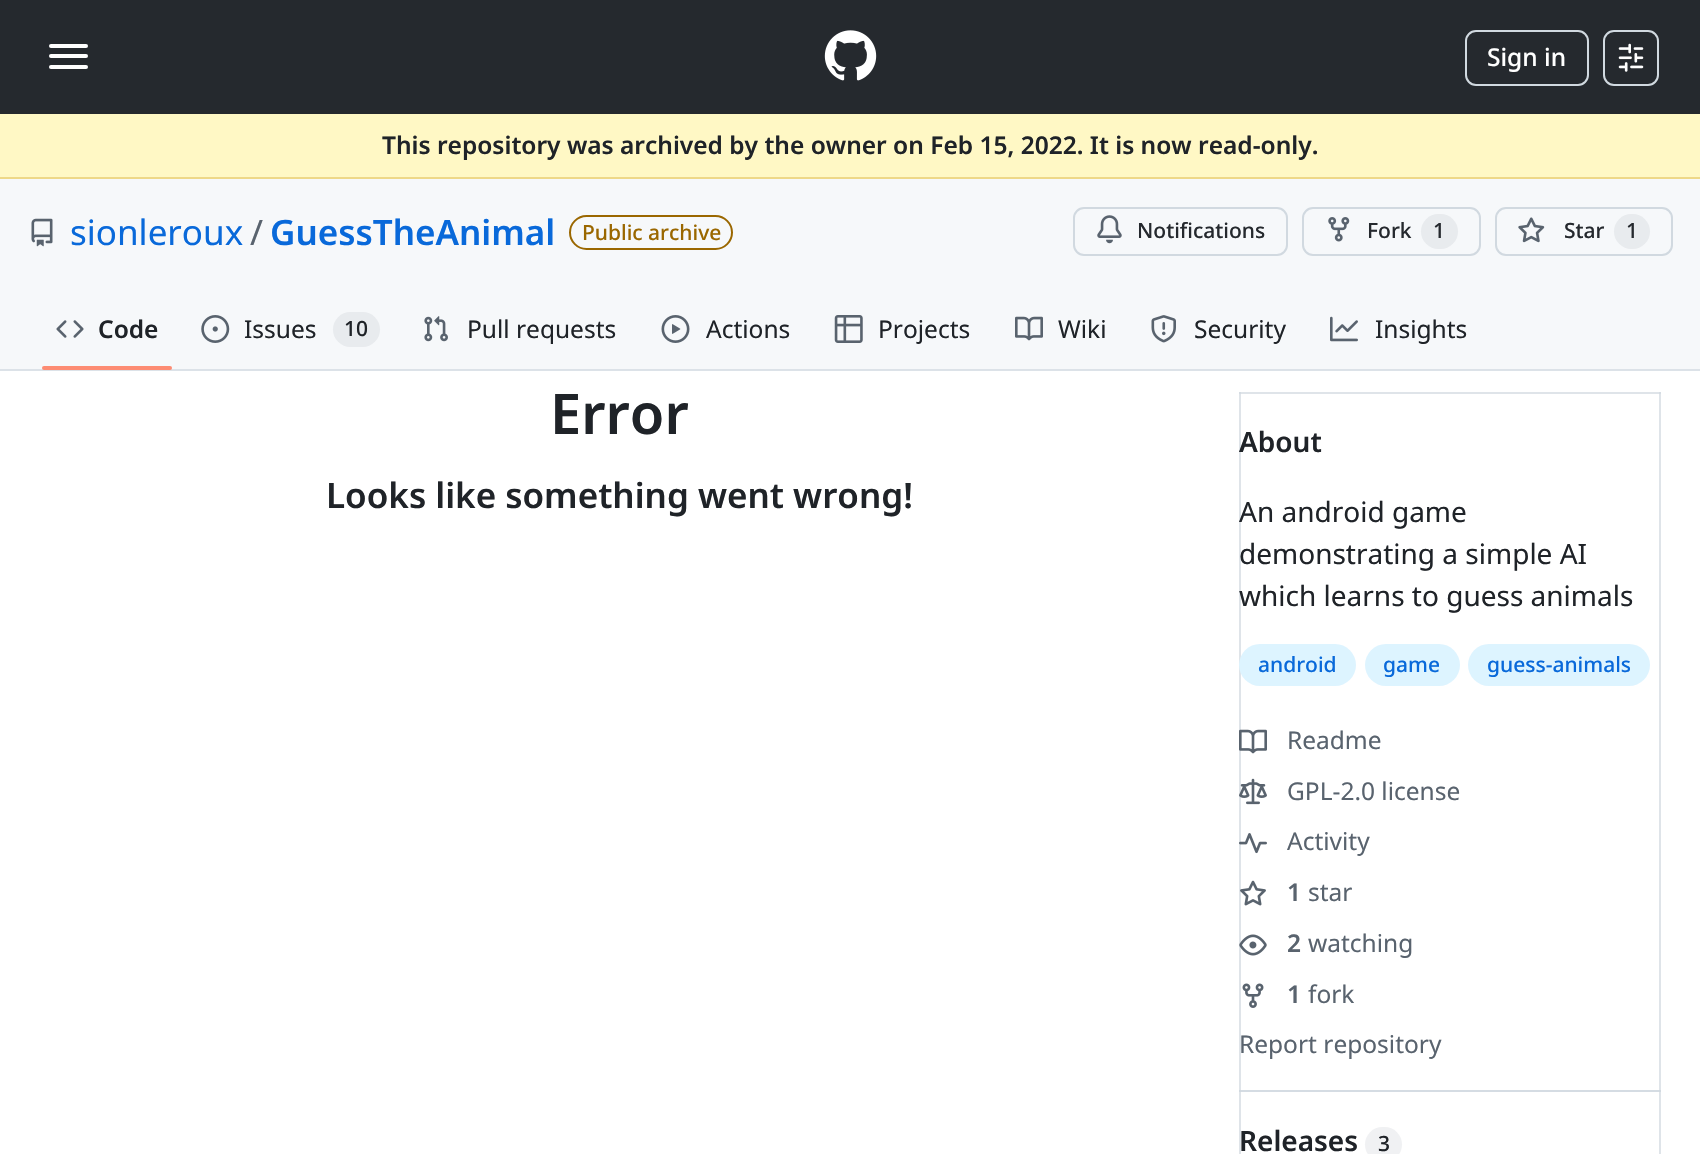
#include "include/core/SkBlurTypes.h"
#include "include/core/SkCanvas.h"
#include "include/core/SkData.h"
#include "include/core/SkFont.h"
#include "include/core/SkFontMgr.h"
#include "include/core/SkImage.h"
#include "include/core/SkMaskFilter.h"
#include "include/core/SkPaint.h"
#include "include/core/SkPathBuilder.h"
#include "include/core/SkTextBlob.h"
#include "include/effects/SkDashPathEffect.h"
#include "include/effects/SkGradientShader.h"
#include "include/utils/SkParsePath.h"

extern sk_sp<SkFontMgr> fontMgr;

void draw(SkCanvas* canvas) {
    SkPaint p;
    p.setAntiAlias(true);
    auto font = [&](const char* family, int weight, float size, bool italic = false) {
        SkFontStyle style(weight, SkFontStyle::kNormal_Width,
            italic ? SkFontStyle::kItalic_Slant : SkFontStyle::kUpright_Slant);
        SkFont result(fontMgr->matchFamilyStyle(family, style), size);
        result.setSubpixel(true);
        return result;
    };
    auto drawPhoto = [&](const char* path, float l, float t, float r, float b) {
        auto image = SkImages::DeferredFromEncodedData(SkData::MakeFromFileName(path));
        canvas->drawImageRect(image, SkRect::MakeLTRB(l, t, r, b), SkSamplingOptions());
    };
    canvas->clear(0xFFFFFFFF);
    {
        const struct { float l, t, r, b; SkColor color; } items[] = {
            {1239, 392, 1241, 1154, 0xFFDFE4E9},
            {1659, 392, 1661, 1154, 0xFFDFE4E9},
            {0, 0, 1700, 114, 0xFF25292E},
        };
        for (auto [l, t, r, b, color] : items) {
            p.setColor(color);
            canvas->drawRect(SkRect::MakeLTRB(l, t, r, b), p);
        }
    }
    p.setColor(0xFFFFFFFF);
    canvas->drawRoundRect(SkRect::MakeLTRB(49, 44, 88, 48), 2, 2, p);
    canvas->drawRoundRect(SkRect::MakeLTRB(49, 54, 88, 58), 2, 2, p);
    canvas->drawRoundRect(SkRect::MakeLTRB(49, 65, 88, 69), 2, 2, p);
    drawPhoto("media/1.png", 824, 30, 877, 81);
    p.setStyle(SkPaint::kStroke_Style);
    p.setStrokeWidth(2);
    p.setColor(0xFFD1D9E0);
    canvas->drawRoundRect(SkRect::MakeLTRB(1466, 31, 1588, 85), 10, 10, p);
    auto font1 = font("Noto Sans", 500, 24.5f);
    p.setStyle(SkPaint::kFill_Style);
    p.setColor(0xFFFFFFFF);
    canvas->drawString("Sign in", 1487, 66, font1, p);
    p.setStyle(SkPaint::kStroke_Style);
    p.setColor(0xFFD1D9E0);
    canvas->drawRoundRect(SkRect::MakeLTRB(1604, 31, 1658, 85), 10, 10, p);
    drawPhoto("media/2.png", 1618, 43, 1644, 72);
    p.setStyle(SkPaint::kFill_Style);
    p.setColor(0xFFFFF8C5);
    canvas->drawRect(SkRect::MakeLTRB(0, 114, 1700, 177), p);
    p.setColor(0xFFEED888);
    canvas->drawRect(SkRect::MakeLTRB(0, 177, 1700, 179), p);
    auto font2 = font("Noto Sans", 600, 24.5f);
    p.setColor(0xFF1F2328);
    canvas->drawString("This repository was archived by the owner on Feb 15, 2022. It is now read-only.", 382, 154, font2, p);
    p.setColor(0xFFF6F8FA);
    canvas->drawRect(SkRect::MakeLTRB(0, 179, 1700, 369), p);
    drawPhoto("media/3.png", 31, 218, 53, 247);
    auto font3 = font("Noto Sans", 400, 35);
    p.setColor(0xFF0969DA);
    canvas->drawString("sionleroux", 70, 245, font3, p);
    p.setColor(0xFF59636E);
    canvas->drawString("/", 250, 245, font3, p);
    auto font4 = font("Noto Sans", 600, 35);
    p.setColor(0xFF0969DA);
    canvas->drawString("GuessTheAnimal", 270, 245, font4, p);
    p.setStyle(SkPaint::kStroke_Style);
    p.setColor(0xFF9A6700);
    canvas->drawRoundRect(SkRect::MakeLTRB(570, 216, 732, 249), 16.5f, 16.5f, p);
    auto font5 = font("Noto Sans", 500, 21);
    p.setStyle(SkPaint::kFill_Style);
    canvas->drawString("Public archive", 582, 240, font5, p);
    p.setStyle(SkPaint::kStroke_Style);
    p.setColor(0xFFD1D9E0);
    canvas->drawRoundRect(SkRect::MakeLTRB(1074, 208, 1287, 255), 10, 10, p);
    drawPhoto("media/4.png", 1097, 215, 1122, 244);
    p.setStyle(SkPaint::kFill_Style);
    p.setColor(0xFF25292E);
    canvas->drawString("Notifications", 1137, 238, font5, p);
    p.setStyle(SkPaint::kStroke_Style);
    p.setColor(0xFFD1D9E0);
    canvas->drawRoundRect(SkRect::MakeLTRB(1303, 208, 1480, 255), 10, 10, p);
    drawPhoto("media/5.png", 1328, 217, 1350, 242);
    p.setStyle(SkPaint::kFill_Style);
    p.setColor(0xFF25292E);
    canvas->drawString("Fork", 1367, 238, font5, p);
    p.setColor(0xFFE8EBEE);
    canvas->drawRoundRect(SkRect::MakeLTRB(1421, 214, 1458, 249), 17.5f, 17.5f, p);
    p.setColor(0xFF25292E);
    canvas->drawString("1", 1433, 238, font5, p);
    p.setStyle(SkPaint::kStroke_Style);
    p.setColor(0xFFD1D9E0);
    canvas->drawRoundRect(SkRect::MakeLTRB(1496, 208, 1672, 255), 10, 10, p);
    drawPhoto("media/6.png", 1518, 217, 1545, 243);
    p.setStyle(SkPaint::kFill_Style);
    p.setColor(0xFF25292E);
    canvas->drawString("Star", 1564, 238, font5, p);
    p.setColor(0xFFE8EBEE);
    canvas->drawRoundRect(SkRect::MakeLTRB(1614, 214, 1650, 249), 17.5f, 17.5f, p);
    p.setColor(0xFF25292E);
    canvas->drawString("1", 1626, 238, font5, p);
    p.setColor(0xFFDCE2E8);
    canvas->drawRect(SkRect::MakeLTRB(0, 369, 1700, 371), p);
    drawPhoto("media/7.png", 56, 320, 84, 338);
    p.setColor(0xFF1F2328);
    canvas->drawString("Code", 98, 338, font2, p);
    p.setColor(0xFFFD8C73);
    canvas->drawRoundRect(SkRect::MakeLTRB(42, 366, 172, 370), 2, 2, p);
    drawPhoto("media/8.png", 201, 315, 230, 343);
    auto font6 = font("Noto Sans", 400, 24.5f);
    p.setColor(0xFF1F2328);
    canvas->drawString("Issues", 244, 338, font6, p);
    p.setColor(0xFFE8EBEE);
    canvas->drawRoundRect(SkRect::MakeLTRB(333, 312, 380, 347), 17.5f, 17.5f, p);
    p.setColor(0xFF1F2328);
    canvas->drawString("10", 344, 336, font5, p);
    drawPhoto("media/9.png", 424, 316, 448, 342);
    canvas->drawString("Pull requests", 467, 338, font6, p);
    drawPhoto("media/10.png", 661, 315, 690, 343);
    canvas->drawString("Actions", 706, 338, font6, p);
    drawPhoto("media/11.png", 834, 315, 863, 343);
    canvas->drawString("Projects", 878, 338, font6, p);
    drawPhoto("media/12.png", 1015, 316, 1043, 341);
    canvas->drawString("Wiki", 1058, 338, font6, p);
    drawPhoto("media/13.png", 1151, 315, 1176, 343);
    canvas->drawString("Security", 1194, 338, font6, p);
    drawPhoto("media/14.png", 1330, 316, 1358, 342);
    canvas->drawString("Insights", 1375, 338, font6, p);
    auto font7 = font("Noto Sans", 600, 56);
    canvas->drawString("Error", 550, 434, font7, p);
    canvas->drawString("Looks like something went wrong!", 326, 508, font4, p);
    {
        const struct { float l, t, r, b; SkColor color; } items[] = {
            {1239, 392, 1661, 394, 0xFFDFE4E9},
            {1239, 392, 1241, 394, 0xFFD5DCE3},
            {1659, 392, 1661, 394, 0xFFD5DCE3},
        };
        for (auto [l, t, r, b, color] : items) {
            p.setColor(color);
            canvas->drawRect(SkRect::MakeLTRB(l, t, r, b), p);
        }
    }
    auto font8 = font("Noto Sans", 600, 28);
    p.setColor(0xFF1F2328);
    canvas->drawString("About", 1239, 452, font8, p);
    auto font9 = font("Noto Sans", 400, 28);
    {
        const struct { const char* s; float x, y; } items[] = {
            {"An android game", 1239, 522},
            {"demonstrating a simple AI", 1239, 564},
            {"which learns to guess animals", 1239, 606},
        };
        for (auto [s, x, y] : items) {
            canvas->drawString(s, x, y, font9, p);
        }
    }
    p.setColor(0xFFDDF4FF);
    canvas->drawRoundRect(SkRect::MakeLTRB(1239, 644, 1356, 686), 21, 21, p);
    p.setColor(0xFF0969DA);
    canvas->drawString("android", 1258, 672, font5, p);
    p.setColor(0xFFDDF4FF);
    canvas->drawRoundRect(SkRect::MakeLTRB(1365, 644, 1460, 686), 21, 21, p);
    p.setColor(0xFF0969DA);
    canvas->drawString("game", 1383, 672, font5, p);
    p.setColor(0xFFDDF4FF);
    canvas->drawRoundRect(SkRect::MakeLTRB(1468, 644, 1650, 686), 21, 21, p);
    p.setColor(0xFF0969DA);
    canvas->drawString("guess-animals", 1487, 672, font5, p);
    drawPhoto("media/15.png", 1239, 729, 1267, 754);
    p.setColor(0xFF59636E);
    canvas->drawString("Readme", 1287, 749, font6, p);
    drawPhoto("media/16.png", 1239, 778, 1267, 805);
    canvas->drawString("GPL-2.0 license", 1287, 800, font6, p);
    drawPhoto("media/17.png", 1239, 833, 1267, 854);
    canvas->drawString("Activity", 1287, 850, font6, p);
    drawPhoto("media/18.png", 1240, 880, 1266, 906);
    canvas->drawString("1", 1287, 901, font2, p);
    canvas->drawString("star", 1308, 901, font6, p);
    drawPhoto("media/19.png", 1239, 934, 1267, 956);
    canvas->drawString("2", 1287, 952, font2, p);
    canvas->drawString("watching", 1308, 952, font6, p);
    drawPhoto("media/20.png", 1242, 983, 1264, 1008);
    canvas->drawString("1", 1287, 1003, font2, p);
    canvas->drawString("fork", 1308, 1003, font6, p);
    canvas->drawString("Report repository", 1239, 1053, font6, p);
    {
        const struct { float l, t, r, b; SkColor color; } items[] = {
            {1239, 1090, 1661, 1092, 0xFFD5DCE3},
            {1239, 1090, 1241, 1092, 0xFFD1D9E0},
            {1659, 1090, 1661, 1092, 0xFFD1D9E0},
        };
        for (auto [l, t, r, b, color] : items) {
            p.setColor(color);
            canvas->drawRect(SkRect::MakeLTRB(l, t, r, b), p);
        }
    }
    p.setColor(0xFF1F2328);
    canvas->drawString("Releases", 1239, 1151, font8, p);
    p.setColor(0xFFF0F1F3);
    canvas->drawRoundRect(SkRect::MakeLTRB(1365, 1127, 1402, 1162), 17.5f, 17.5f, p);
    p.setColor(0xFF1F2328);
    canvas->drawString("3", 1378, 1151, font5, p);
}
